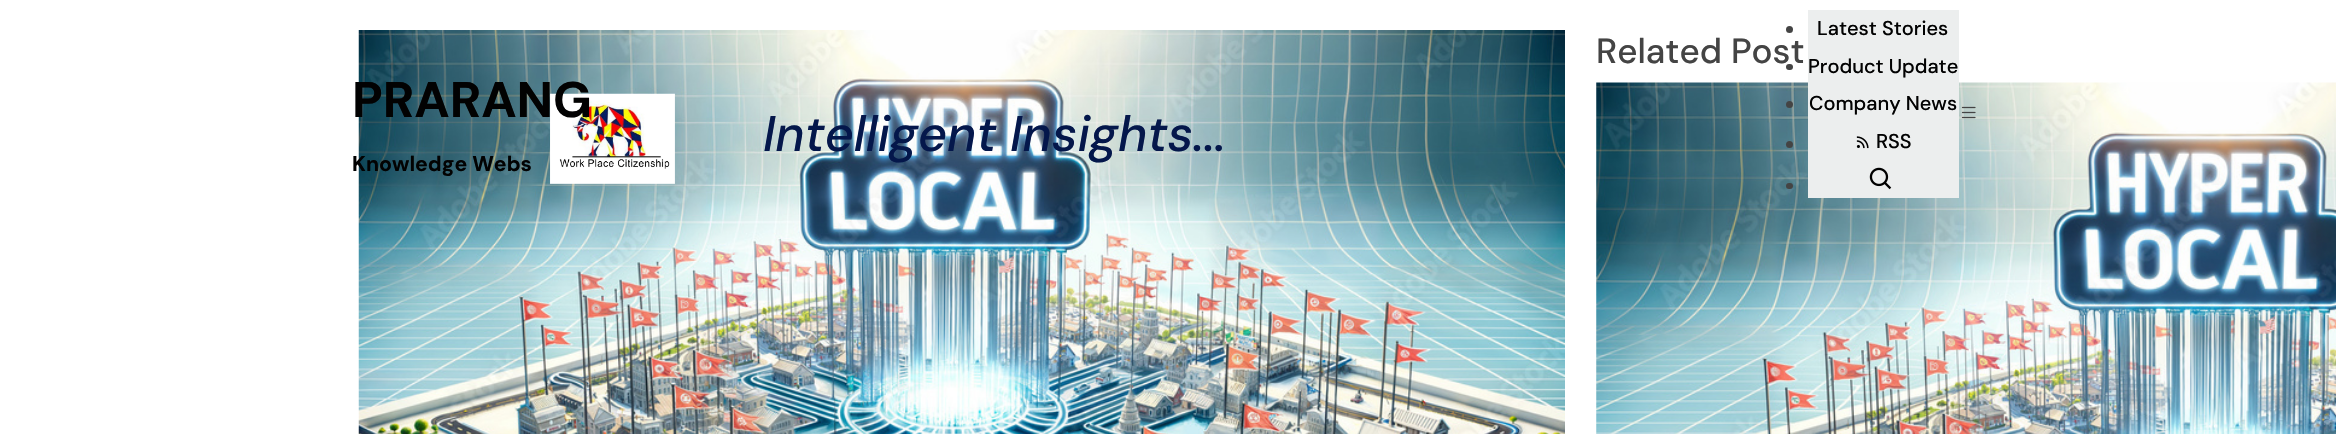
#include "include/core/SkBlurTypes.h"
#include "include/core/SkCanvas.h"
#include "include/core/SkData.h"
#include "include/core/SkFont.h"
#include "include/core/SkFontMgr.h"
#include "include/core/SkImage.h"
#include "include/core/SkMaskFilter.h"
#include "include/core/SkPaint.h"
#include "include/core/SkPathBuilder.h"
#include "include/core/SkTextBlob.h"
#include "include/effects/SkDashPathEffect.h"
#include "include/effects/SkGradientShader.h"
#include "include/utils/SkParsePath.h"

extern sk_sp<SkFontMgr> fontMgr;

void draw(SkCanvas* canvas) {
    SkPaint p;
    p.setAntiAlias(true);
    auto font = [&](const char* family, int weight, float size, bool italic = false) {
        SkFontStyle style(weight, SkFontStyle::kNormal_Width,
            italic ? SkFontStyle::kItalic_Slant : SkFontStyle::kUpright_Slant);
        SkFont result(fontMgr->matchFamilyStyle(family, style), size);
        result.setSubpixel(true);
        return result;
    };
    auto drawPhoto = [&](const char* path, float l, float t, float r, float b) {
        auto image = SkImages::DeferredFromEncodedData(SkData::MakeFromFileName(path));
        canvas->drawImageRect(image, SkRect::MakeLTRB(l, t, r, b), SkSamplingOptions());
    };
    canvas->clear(0xFFFFFFFF);
    drawPhoto("media/5.png", 358, 30, 1565, 434);
    drawPhoto("media/1.png", 550, 93, 675, 184);
    auto font1 = font("DM Sans", 700, 50);
    p.setColor(0xFF020202);
    canvas->drawString("PRARANG", 352, 117, font1, p);
    auto font2 = font("DM Sans", 500, 50, true);
    p.setColor(0xFF04174B);
    canvas->drawString("Intelligent Insights...", 763, 151, font2, p);
    auto font3 = font("DM Sans", 700, 21.25f);
    p.setColor(0xFF020202);
    canvas->drawString("Knowledge Webs", 352, 171, font3, p);
    p.setColor(0xFF444444);
    canvas->drawCircle(1789.5f, 29.5f, 3.5f, p);
    drawPhoto("media/6.png", 1596, 82, 2336, 434);
    p.setColor(0xFFECEEEE);
    canvas->drawRect(SkRect::MakeLTRB(1808, 10, 1959, 198), p);
    auto font4 = font("DM Sans", 500, 20);
    p.setColor(0xFF020202);
    canvas->drawString("Latest Stories", 1817, 35, font4, p);
    p.setColor(0xFF444444);
    canvas->drawRoundRect(SkRect::MakeLTRB(1786, 64, 1793, 70), 3, 3, p);
    p.setColor(0xFF020202);
    canvas->drawString("Product Update", 1808, 73, font4, p);
    p.setColor(0xFF444444);
    canvas->drawCircle(1789.5f, 104.5f, 3.5f, p);
    p.setColor(0xFF020202);
    canvas->drawString("Company News", 1809, 110, font4, p);
    p.setColor(0xFF444444);
    canvas->drawCircle(1789.5f, 144.5f, 3.5f, p);
    drawPhoto("media/2.png", 1856, 136, 1869, 149);
    p.setColor(0xFF020202);
    canvas->drawString("RSS", 1876, 148, font4, p);
    p.setColor(0xFF444444);
    canvas->drawRoundRect(SkRect::MakeLTRB(1786, 183, 1793, 189), 3, 3, p);
    drawPhoto("media/3.png", 1869, 167, 1892, 190);
    drawPhoto("media/4.png", 1961, 106, 1976, 119);
    auto font5 = font("DM Sans", 500, 35);
    canvas->drawString("Related Post", 1596, 63, font5, p);
}
